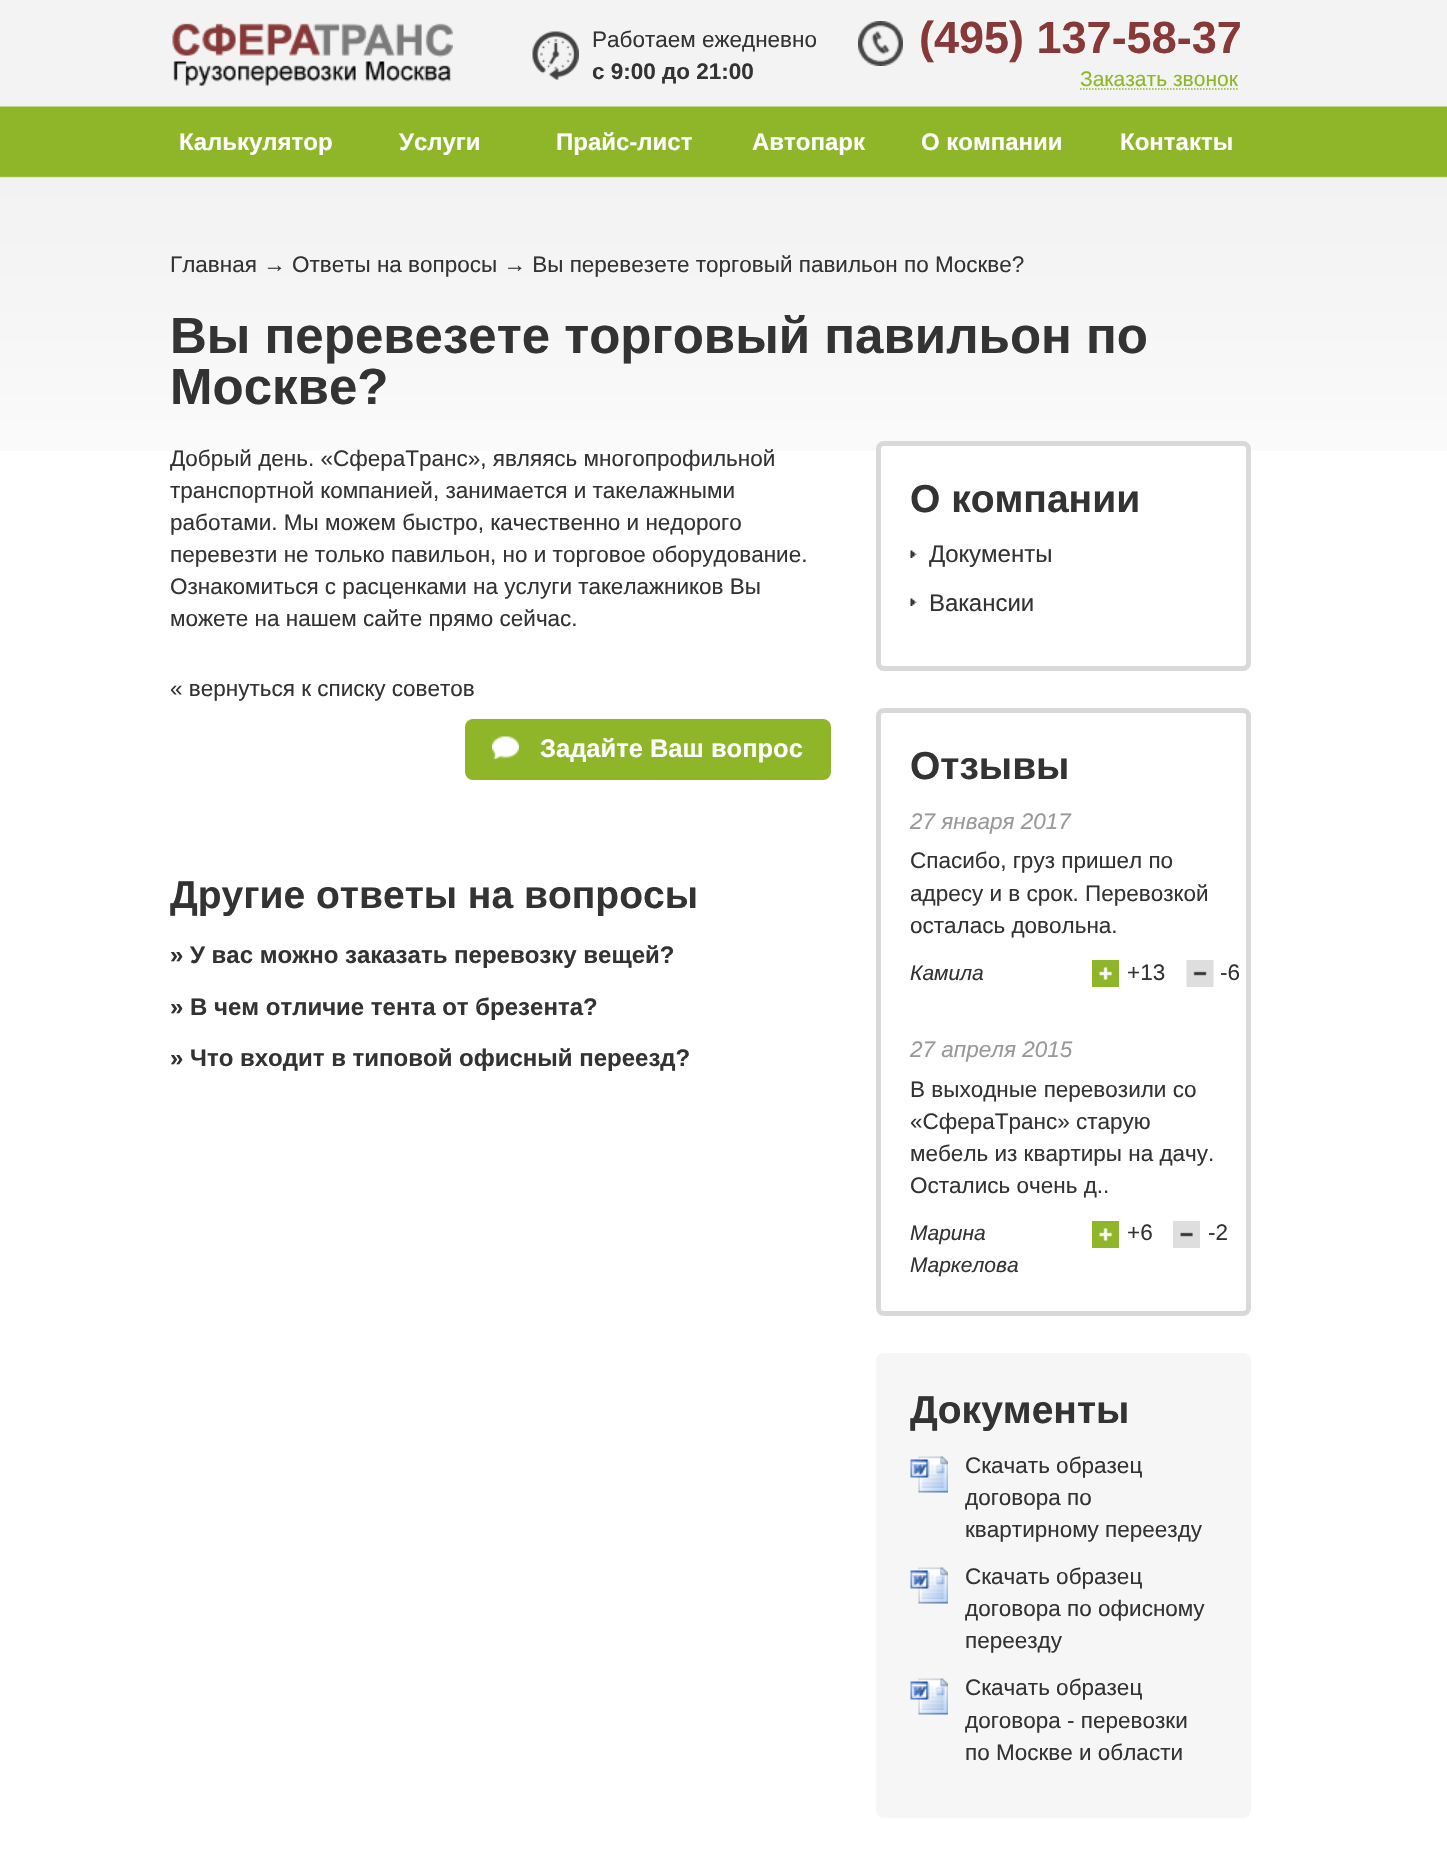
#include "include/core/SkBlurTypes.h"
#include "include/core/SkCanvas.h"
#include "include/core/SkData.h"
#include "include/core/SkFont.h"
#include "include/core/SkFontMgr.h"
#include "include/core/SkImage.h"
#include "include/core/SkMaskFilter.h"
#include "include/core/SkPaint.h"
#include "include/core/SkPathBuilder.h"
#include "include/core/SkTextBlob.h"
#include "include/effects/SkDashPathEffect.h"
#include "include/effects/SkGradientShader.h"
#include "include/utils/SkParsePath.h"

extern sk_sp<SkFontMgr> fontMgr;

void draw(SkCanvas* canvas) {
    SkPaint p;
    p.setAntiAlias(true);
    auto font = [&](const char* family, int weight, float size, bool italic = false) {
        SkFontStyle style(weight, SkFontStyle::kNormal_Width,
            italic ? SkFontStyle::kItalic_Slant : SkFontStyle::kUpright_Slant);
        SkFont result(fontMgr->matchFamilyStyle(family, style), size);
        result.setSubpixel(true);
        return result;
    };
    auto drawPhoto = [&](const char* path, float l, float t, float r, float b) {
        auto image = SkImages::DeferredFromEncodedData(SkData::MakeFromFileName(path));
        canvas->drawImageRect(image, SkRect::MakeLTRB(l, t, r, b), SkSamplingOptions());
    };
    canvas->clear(0xFFFFFFFF);
    drawPhoto("media/1.png", 0, 0, 1447, 451);
    drawPhoto("media/2.png", 172, 23, 453, 86);
    drawPhoto("media/3.png", 532, 31, 579, 80);
    auto font1 = font("Liberation Sans", 400, 22.5f);
    p.setColor(0xFF333333);
    canvas->drawString("Работаем ежедневно", 592, 47, font1, p);
    auto font2 = font("Liberation Sans", 700, 22.5f);
    canvas->drawString("с 9:00 до 21:00", 592, 79, font2, p);
    drawPhoto("media/4.png", 858, 21, 903, 66);
    auto font3 = font("Liberation Sans", 700, 45);
    p.setColor(0xFF873939);
    canvas->drawString("(495) 137-58-37", 919, 53, font3, p);
    p.setStyle(SkPaint::kStroke_Style);
    p.setStrokeWidth(1.5f);
    p.setColor(0xFF8FB629);
    p.setPathEffect(SkDashPathEffect::Make({{1.5f, 1.5f}}, 0));
    canvas->drawPath(SkPathBuilder().moveTo(1080, 89).lineTo(1239, 89).detach(), p);
    p.setPathEffect(nullptr);
    auto font4 = font("Liberation Sans", 400, 21);
    p.setStyle(SkPaint::kFill_Style);
    canvas->drawString("Заказать звонок", 1080, 86, font4, p);
    auto font5 = font("Liberation Sans", 700, 24);
    p.setColor(0xFFFFFFFF);
    {
        const struct { const char* s; float x, y; } items[] = {
            {"Калькулятор", 179, 150},
            {"Услуги", 399, 150},
            {"Прайс-лист", 556, 150},
            {"Автопарк", 752, 150},
            {"О компании", 921, 150},
            {"Контакты", 1120, 150},
        };
        for (auto [s, x, y] : items) {
            canvas->drawString(s, x, y, font5, p);
        }
    }
    p.setColor(0xFF333333);
    canvas->drawString("Главная → Ответы на вопросы → Вы перевезете торговый павильон по Москве?", 170, 272, font1, p);
    auto font6 = font("Liberation Sans", 700, 51);
    canvas->drawString("Вы перевезете торговый павильон по", 170, 353, font6, p);
    canvas->drawString("Москве?", 170, 404, font6, p);
    {
        const struct { const char* s; float x, y; } items[] = {
            {"Добрый день. «СфераТранс», являясь многопрофильной", 170, 466},
            {"транспортной компанией, занимается и такелажными", 170, 498},
            {"работами. Мы можем быстро, качественно и недорого", 170, 530},
            {"перевезти не только павильон, но и торговое оборудование.", 170, 562},
            {"Ознакомиться с расценками на услуги такелажников Вы", 170, 594},
            {"можете на нашем сайте прямо сейчас.", 170, 626},
            {"« вернуться к списку советов", 170, 696},
        };
        for (auto [s, x, y] : items) {
            canvas->drawString(s, x, y, font1, p);
        }
    }
    p.setColor(0xFF8FB629);
    canvas->drawRoundRect(SkRect::MakeLTRB(466.5f, 720.5f, 829.5f, 778.5f), 6.5f, 6.5f, p);
    p.setStyle(SkPaint::kStroke_Style);
    p.setStrokeWidth(3);
    canvas->drawRoundRect(SkRect::MakeLTRB(466.5f, 720.5f, 829.5f, 778.5f), 6.5f, 6.5f, p);
    drawPhoto("media/5.png", 492, 736, 519, 759);
    auto font7 = font("Liberation Sans", 700, 25.5f);
    p.setStyle(SkPaint::kFill_Style);
    p.setColor(0xFFFFFFFF);
    canvas->drawString("Задайте Ваш вопрос", 540, 757, font7, p);
    auto font8 = font("Liberation Sans", 700, 39);
    p.setColor(0xFF333333);
    canvas->drawString("Другие ответы на вопросы", 170, 908, font8, p);
    {
        const struct { const char* s; float x, y; } items[] = {
            {"» У вас можно заказать перевозку вещей?", 170, 963},
            {"» В чем отличие тента от брезента?", 170, 1015},
            {"» Что входит в типовой офисный переезд?", 170, 1066},
        };
        for (auto [s, x, y] : items) {
            canvas->drawString(s, x, y, font5, p);
        }
    }
    p.setColor(0xFFFFFFFF);
    canvas->drawRoundRect(SkRect::MakeLTRB(878.5f, 443.5f, 1248.5f, 668.5f), 5.5f, 5.5f, p);
    p.setStyle(SkPaint::kStroke_Style);
    p.setStrokeWidth(5);
    p.setColor(0xFFD9D9D9);
    canvas->drawRoundRect(SkRect::MakeLTRB(878.5f, 443.5f, 1248.5f, 668.5f), 5.5f, 5.5f, p);
    p.setStyle(SkPaint::kFill_Style);
    p.setColor(0xFF333333);
    canvas->drawString("О компании", 910, 512, font8, p);
    drawPhoto("media/6.png", 910, 550, 917, 558);
    auto font9 = font("Liberation Sans", 400, 24);
    canvas->drawString("Документы", 929, 562, font9, p);
    drawPhoto("media/6.png", 910, 598, 917, 606);
    canvas->drawString("Вакансии", 929, 611, font9, p);
    p.setStyle(SkPaint::kStroke_Style);
    p.setColor(0xFFD9D9D9);
    canvas->drawRoundRect(SkRect::MakeLTRB(878.5f, 710.5f, 1248.5f, 1313.5f), 5.5f, 5.5f, p);
    p.setStyle(SkPaint::kFill_Style);
    p.setColor(0xFF333333);
    canvas->drawString("Отзывы", 910, 779, font8, p);
    auto font10 = font("Liberation Sans", 400, 22.5f, true);
    p.setColor(0xFF999999);
    canvas->drawString("27 января 2017", 910, 829, font10, p);
    p.setColor(0xFF333333);
    {
        const struct { const char* s; float x, y; } items[] = {
            {"Спасибо, груз пришел по", 910, 868},
            {"адресу и в срок. Перевозкой", 910, 901},
            {"осталась довольна.", 910, 933},
        };
        for (auto [s, x, y] : items) {
            canvas->drawString(s, x, y, font1, p);
        }
    }
    auto font11 = font("Liberation Sans", 400, 21, true);
    canvas->drawString("Камила", 910, 980, font11, p);
    drawPhoto("media/7.png", 1092, 960, 1119, 987);
    canvas->drawString("+13", 1127, 980, font1, p);
    drawPhoto("media/8.png", 1186, 960, 1214, 987);
    canvas->drawString("-6", 1220, 980, font1, p);
    p.setColor(0xFF999999);
    canvas->drawString("27 апреля 2015", 910, 1057, font10, p);
    p.setColor(0xFF333333);
    {
        const struct { const char* s; float x, y; } items[] = {
            {"В выходные перевозили со", 910, 1097},
            {"«СфераТранс» старую", 910, 1129},
            {"мебель из квартиры на дачу.", 910, 1161},
            {"Остались очень д..", 910, 1193},
        };
        for (auto [s, x, y] : items) {
            canvas->drawString(s, x, y, font1, p);
        }
    }
    canvas->drawString("Марина", 910, 1240, font11, p);
    canvas->drawString("Маркелова", 910, 1272, font11, p);
    drawPhoto("media/7.png", 1092, 1221, 1119, 1248);
    canvas->drawString("+6", 1127, 1240, font1, p);
    drawPhoto("media/9.png", 1173, 1221, 1200, 1248);
    canvas->drawString("-2", 1208, 1240, font1, p);
    p.setColor(0xFFF6F6F6);
    canvas->drawRoundRect(SkRect::MakeLTRB(876, 1353, 1251, 1818), 8, 8, p);
    p.setColor(0xFF333333);
    canvas->drawString("Документы", 910, 1423, font8, p);
    drawPhoto("media/10.png", 910, 1456, 948, 1493);
    {
        const struct { const char* s; float x, y; } items[] = {
            {"Скачать образец", 965, 1473},
            {"договора по", 965, 1505},
            {"квартирному переезду", 965, 1537},
        };
        for (auto [s, x, y] : items) {
            canvas->drawString(s, x, y, font1, p);
        }
    }
    drawPhoto("media/10.png", 910, 1567, 948, 1604);
    {
        const struct { const char* s; float x, y; } items[] = {
            {"Скачать образец", 965, 1584},
            {"договора по офисному", 965, 1616},
            {"переезду", 965, 1648},
        };
        for (auto [s, x, y] : items) {
            canvas->drawString(s, x, y, font1, p);
        }
    }
    drawPhoto("media/10.png", 910, 1678, 948, 1715);
    {
        const struct { const char* s; float x, y; } items[] = {
            {"Скачать образец", 965, 1695},
            {"договора - перевозки", 965, 1728},
            {"по Москве и области", 965, 1760},
        };
        for (auto [s, x, y] : items) {
            canvas->drawString(s, x, y, font1, p);
        }
    }
}
